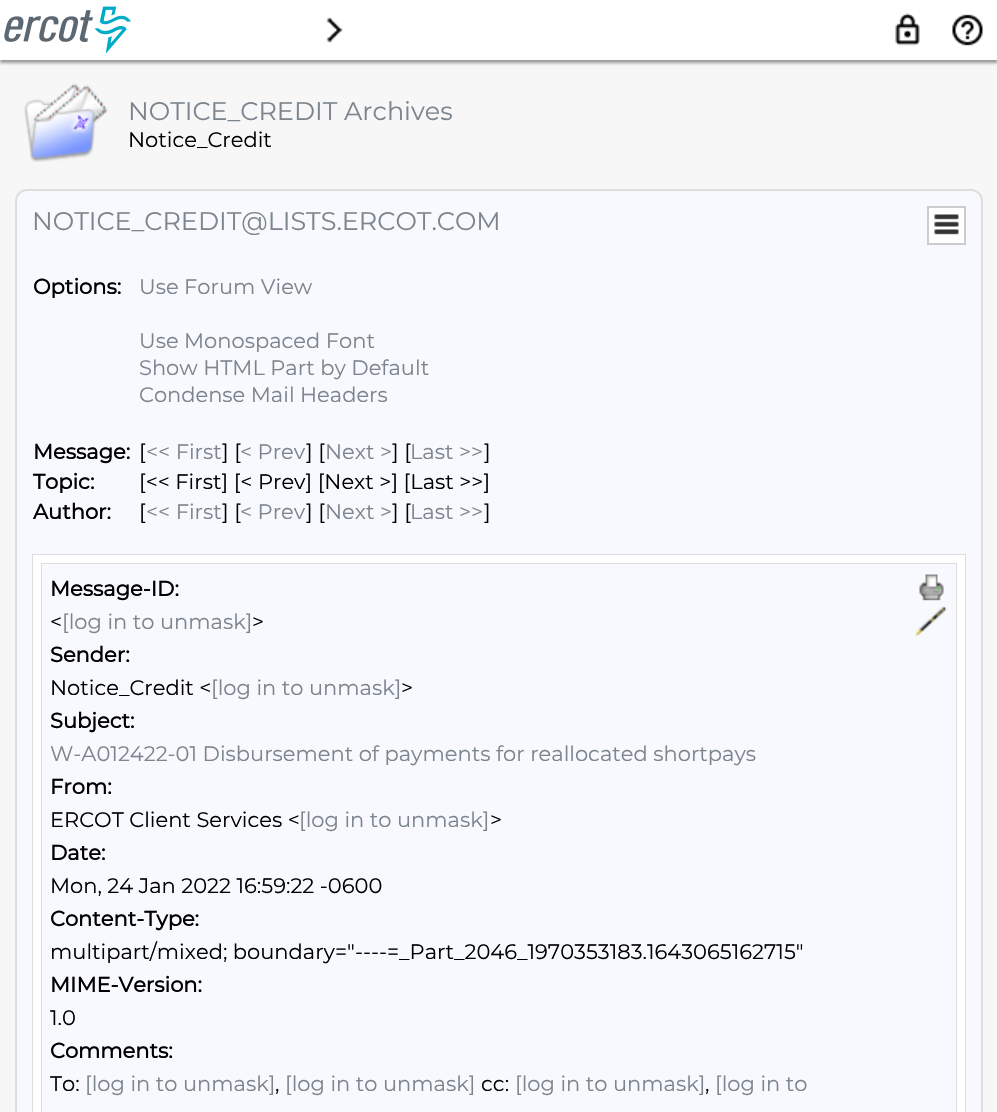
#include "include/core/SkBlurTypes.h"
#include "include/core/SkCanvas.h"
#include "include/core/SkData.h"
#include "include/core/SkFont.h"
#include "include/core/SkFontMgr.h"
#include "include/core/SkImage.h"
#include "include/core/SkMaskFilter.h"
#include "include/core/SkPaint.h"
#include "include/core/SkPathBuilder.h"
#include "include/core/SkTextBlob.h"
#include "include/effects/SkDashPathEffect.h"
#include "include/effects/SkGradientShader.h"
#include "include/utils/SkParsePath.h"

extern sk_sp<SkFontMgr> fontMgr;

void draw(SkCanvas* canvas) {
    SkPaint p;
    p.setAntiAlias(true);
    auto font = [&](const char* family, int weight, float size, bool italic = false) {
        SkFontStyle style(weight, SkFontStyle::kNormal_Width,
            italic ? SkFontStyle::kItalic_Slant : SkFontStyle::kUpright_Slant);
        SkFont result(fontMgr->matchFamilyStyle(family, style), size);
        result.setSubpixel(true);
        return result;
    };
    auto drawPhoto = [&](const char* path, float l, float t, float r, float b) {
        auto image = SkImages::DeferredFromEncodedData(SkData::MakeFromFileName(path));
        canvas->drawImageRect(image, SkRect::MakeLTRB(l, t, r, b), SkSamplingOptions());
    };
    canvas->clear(0xFFF7F7F7);
    p.setColor(0xFF999999);
    p.setMaskFilter(SkMaskFilter::MakeBlur(kNormal_SkBlurStyle, 1.5f));
    canvas->drawRect(SkRect::MakeLTRB(0, 3, 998, 63), p);
    p.setMaskFilter(nullptr);
    p.setColor(0xFFFFFFFF);
    canvas->drawRect(SkRect::MakeLTRB(0, 0, 997, 60), p);
    drawPhoto("media/1.png", 4, 6, 131, 54);
    drawPhoto("media/2.png", 326, 17, 343, 43);
    drawPhoto("media/3.png", 895, 13, 920, 46);
    drawPhoto("media/4.png", 952, 14, 983, 46);
    drawPhoto("media/5.png", 24, 83, 108, 162);
    auto font1 = font("Montserrat", 100, 25.5f);
    p.setColor(0xFF7C858D);
    canvas->drawString("NOTICE_CREDIT Archives", 128, 120, font1, p);
    auto font2 = font("Montserrat", 100, 21);
    p.setColor(0xFF000000);
    canvas->drawString("Notice_Credit", 128, 147, font2, p);
    p.setColor(0xFFF7F9FE);
    canvas->drawRoundRect(SkRect::MakeLTRB(16, 190, 982, 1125), 11, 11, p);
    p.setStyle(SkPaint::kStroke_Style);
    p.setStrokeWidth(2);
    p.setColor(0xFFDEDEDE);
    canvas->drawRoundRect(SkRect::MakeLTRB(16, 190, 982, 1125), 11, 11, p);
    p.setStyle(SkPaint::kFill_Style);
    p.setColor(0xFF7C858D);
    canvas->drawString("NOTICE_CREDIT@LISTS.ERCOT.COM", 32, 230, font1, p);
    p.setColor(0xFFFFFFFF);
    canvas->drawRect(SkRect::MakeLTRB(928, 207, 965, 244), p);
    p.setStyle(SkPaint::kStroke_Style);
    p.setColor(0xFFCCCCCC);
    canvas->drawRect(SkRect::MakeLTRB(928, 207, 965, 244), p);
    drawPhoto("media/6.png", 934, 214, 959, 235);
    auto font3 = font("Montserrat", 700, 21);
    p.setStyle(SkPaint::kFill_Style);
    p.setColor(0xFF000000);
    canvas->drawString("Options:", 33, 294, font3, p);
    p.setColor(0xFF7C858D);
    {
        const struct { const char* s; float x, y; } items[] = {
            {"Use Forum View", 139, 294},
            {"Use Monospaced Font", 139, 348},
            {"Show HTML Part by Default", 139, 375},
            {"Condense Mail Headers", 139, 402},
        };
        for (auto [s, x, y] : items) {
            canvas->drawString(s, x, y, font2, p);
        }
    }
    p.setColor(0xFF000000);
    canvas->drawString("Message:", 33, 459, font3, p);
    canvas->drawString("[", 139, 459, font2, p);
    p.setColor(0xFF7C858D);
    canvas->drawString("<< First", 146, 459, font2, p);
    p.setColor(0xFF000000);
    canvas->drawString("] [", 222, 459, font2, p);
    p.setColor(0xFF7C858D);
    canvas->drawString("< Prev", 240, 459, font2, p);
    p.setColor(0xFF000000);
    canvas->drawString("] [", 306, 459, font2, p);
    p.setColor(0xFF7C858D);
    canvas->drawString("Next >", 325, 459, font2, p);
    p.setColor(0xFF000000);
    canvas->drawString("] [", 392, 459, font2, p);
    p.setColor(0xFF7C858D);
    canvas->drawString("Last >>", 410, 459, font2, p);
    p.setColor(0xFF000000);
    canvas->drawString("]", 484, 459, font2, p);
    canvas->drawString("Topic:", 33, 489, font3, p);
    canvas->drawString("[<< First] [< Prev] [Next >] [Last >>]", 139, 489, font2, p);
    canvas->drawString("Author:", 33, 519, font3, p);
    canvas->drawString("[", 139, 519, font2, p);
    p.setColor(0xFF7C858D);
    canvas->drawString("<< First", 146, 519, font2, p);
    p.setColor(0xFF000000);
    canvas->drawString("] [", 222, 519, font2, p);
    p.setColor(0xFF7C858D);
    canvas->drawString("< Prev", 240, 519, font2, p);
    p.setColor(0xFF000000);
    canvas->drawString("] [", 306, 519, font2, p);
    p.setColor(0xFF7C858D);
    canvas->drawString("Next >", 325, 519, font2, p);
    p.setColor(0xFF000000);
    canvas->drawString("] [", 392, 519, font2, p);
    p.setColor(0xFF7C858D);
    canvas->drawString("Last >>", 410, 519, font2, p);
    p.setColor(0xFF000000);
    canvas->drawString("]", 484, 519, font2, p);
    p.setStyle(SkPaint::kStroke_Style);
    p.setColor(0xFFDEDEDE);
    canvas->drawRect(SkRect::MakeLTRB(33, 555, 965, 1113), p);
    p.setStyle(SkPaint::kFill_Style);
    p.setColor(0xFFFFFFFF);
    canvas->drawRect(SkRect::MakeLTRB(33, 555, 965, 1112), p);
    p.setStyle(SkPaint::kStroke_Style);
    p.setColor(0xFFDEDEDE);
    canvas->drawRect(SkRect::MakeLTRB(42, 564, 956, 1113), p);
    p.setStyle(SkPaint::kFill_Style);
    p.setColor(0xFFF7F9FE);
    canvas->drawRect(SkRect::MakeLTRB(42, 564, 956, 1112), p);
    p.setColor(0xFF000000);
    canvas->drawString("Message-ID:", 50, 596, font3, p);
    canvas->drawString("<", 50, 629, font2, p);
    p.setColor(0xFF7C858D);
    canvas->drawString("[log in to unmask]", 62, 629, font2, p);
    p.setColor(0xFF000000);
    canvas->drawString(">", 252, 629, font2, p);
    canvas->drawString("Sender:", 50, 662, font3, p);
    canvas->drawString("Notice_Credit <", 50, 695, font2, p);
    p.setColor(0xFF7C858D);
    canvas->drawString("[log in to unmask]", 211, 695, font2, p);
    p.setColor(0xFF000000);
    canvas->drawString(">", 401, 695, font2, p);
    canvas->drawString("Subject:", 50, 728, font3, p);
    p.setColor(0xFF7C858D);
    canvas->drawString("W-A012422-01 Disbursement of payments for reallocated shortpays", 50, 761, font2, p);
    p.setColor(0xFF000000);
    canvas->drawString("From:", 50, 794, font3, p);
    canvas->drawString("ERCOT Client Services <", 50, 827, font2, p);
    p.setColor(0xFF7C858D);
    canvas->drawString("[log in to unmask]", 299, 827, font2, p);
    p.setColor(0xFF000000);
    canvas->drawString(">", 490, 827, font2, p);
    canvas->drawString("Date:", 50, 860, font3, p);
    canvas->drawString("Mon, 24 Jan 2022 16:59:22 -0600", 50, 893, font2, p);
    canvas->drawString("Content-Type:", 50, 926, font3, p);
    canvas->drawString("multipart/mixed; boundary=\"----=_Part_2046_1970353183.1643065162715\"", 50, 959, font2, p);
    canvas->drawString("MIME-Version:", 50, 992, font3, p);
    canvas->drawString("1.0", 50, 1025, font2, p);
    canvas->drawString("Comments:", 50, 1058, font3, p);
    canvas->drawString("To:", 50, 1091, font2, p);
    p.setColor(0xFF7C858D);
    canvas->drawString("[log in to unmask]", 85, 1091, font2, p);
    p.setColor(0xFF000000);
    canvas->drawString(",", 275, 1091, font2, p);
    p.setColor(0xFF7C858D);
    canvas->drawString("[log in to unmask]", 285, 1091, font2, p);
    p.setColor(0xFF000000);
    canvas->drawString("cc:", 481, 1091, font2, p);
    p.setColor(0xFF7C858D);
    canvas->drawString("[log in to unmask]", 515, 1091, font2, p);
    p.setColor(0xFF000000);
    canvas->drawString(",", 705, 1091, font2, p);
    p.setColor(0xFF7C858D);
    canvas->drawString("[log in to", 715, 1091, font2, p);
    drawPhoto("media/7.png", 919, 574, 944, 601);
    drawPhoto("media/8.png", 915, 606, 947, 637);
}
